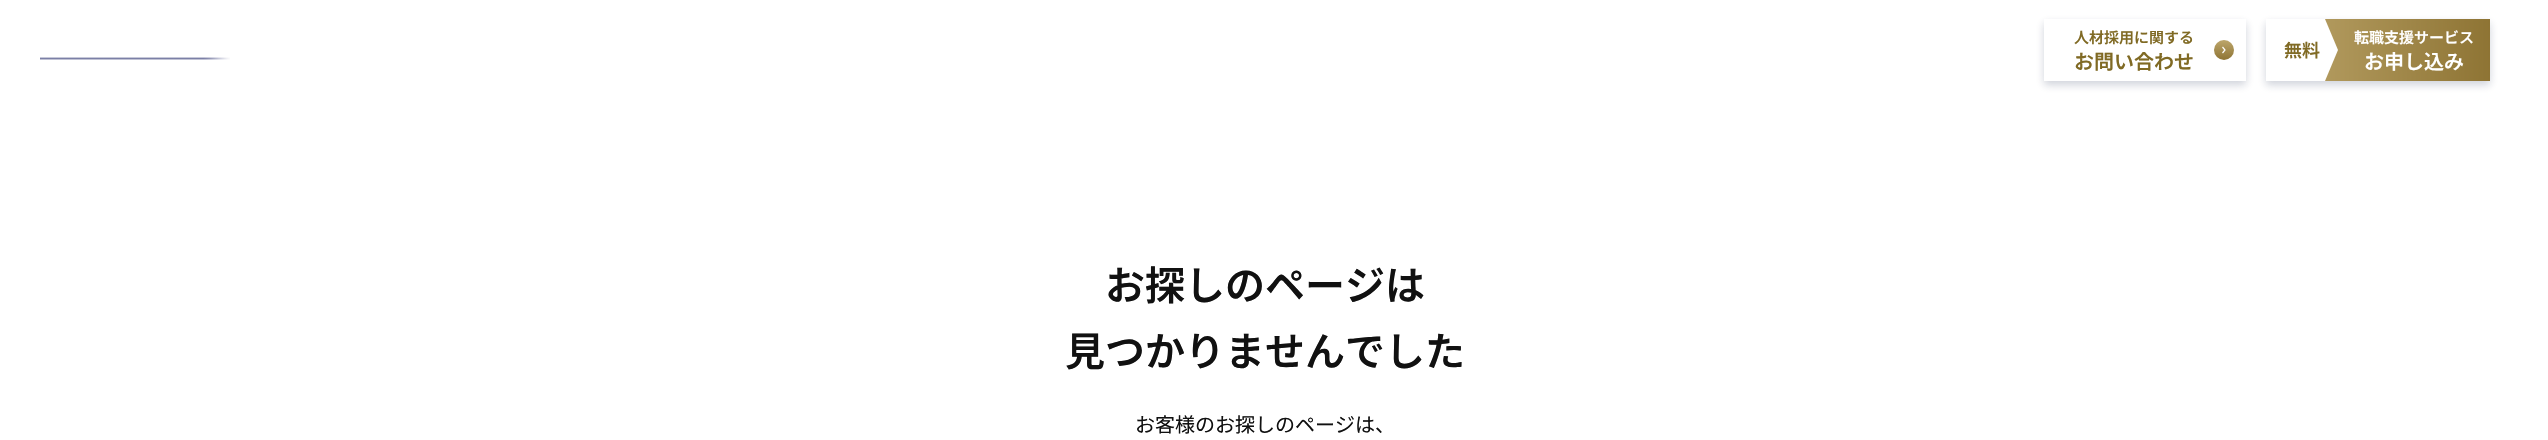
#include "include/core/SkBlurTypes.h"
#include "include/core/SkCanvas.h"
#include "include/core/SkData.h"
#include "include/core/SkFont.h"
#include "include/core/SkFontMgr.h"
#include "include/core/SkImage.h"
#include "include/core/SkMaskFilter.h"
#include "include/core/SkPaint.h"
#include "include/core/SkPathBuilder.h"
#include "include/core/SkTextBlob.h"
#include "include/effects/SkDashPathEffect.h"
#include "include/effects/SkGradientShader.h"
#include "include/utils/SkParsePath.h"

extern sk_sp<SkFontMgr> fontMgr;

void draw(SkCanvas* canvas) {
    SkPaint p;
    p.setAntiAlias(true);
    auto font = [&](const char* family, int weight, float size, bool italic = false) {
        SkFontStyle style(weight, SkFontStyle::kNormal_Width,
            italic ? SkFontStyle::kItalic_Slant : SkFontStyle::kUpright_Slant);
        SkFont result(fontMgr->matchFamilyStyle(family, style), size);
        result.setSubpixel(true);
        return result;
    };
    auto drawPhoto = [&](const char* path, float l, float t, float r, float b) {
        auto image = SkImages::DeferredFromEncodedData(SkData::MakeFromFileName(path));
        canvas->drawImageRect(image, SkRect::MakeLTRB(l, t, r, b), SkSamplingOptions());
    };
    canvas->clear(0xFFFFFFFF);
    drawPhoto("media/1.png", 40, 57, 230, 60);
    canvas->save();
    canvas->clipPath(SkPathBuilder(SkPathFillType::kEvenOdd).moveTo(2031, 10).lineTo(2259, 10).lineTo(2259, 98).lineTo(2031, 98).close().moveTo(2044, 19).lineTo(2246, 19).lineTo(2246, 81).lineTo(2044, 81).close().detach(), true);
    p.setColor(0x3312224D);
    p.setMaskFilter(SkMaskFilter::MakeBlur(kNormal_SkBlurStyle, 4));
    canvas->drawRect(SkRect::MakeLTRB(2044, 23, 2246, 85), p);
    p.setMaskFilter(nullptr);
    canvas->restore();
    auto font1 = font("Noto Sans JP", 600, 15);
    p.setColor(0xFF806A24);
    canvas->drawString("人材採用に関する", 2074, 43, font1, p);
    auto font2 = font("Noto Sans JP", 600, 20);
    canvas->drawString("お問い合わせ", 2074, 69, font2, p);
    {
        const SkColor colors[] = {0xFFBDA66B, 0xFF8E7434};
        const float stops[] = {0, 1};
        const SkPoint ends[] = {{2224, 40}, {2224, 60}};
        p.setShader(SkGradientShader::MakeLinear(ends, colors, stops, 2, SkTileMode::kClamp));
        p.setAlpha(255);
    }
    canvas->drawCircle(2224, 50, 10, p);
    p.setStyle(SkPaint::kStroke_Style);
    p.setStrokeWidth(1.2f);
    p.setShader(nullptr);
    p.setColor(0xFFFFFFFF);
    canvas->drawPath(SkPathBuilder().moveTo(2222.5f, 53).lineTo(2225, 50).lineTo(2222.5f, 47).detach(), p);
    p.setStyle(SkPaint::kFill_Style);
    p.setColor(0x3312224D);
    p.setMaskFilter(SkMaskFilter::MakeBlur(kNormal_SkBlurStyle, 4));
    canvas->drawRect(SkRect::MakeLTRB(2266, 23, 2490, 85), p);
    p.setMaskFilter(nullptr);
    {
        const SkColor colors[] = {0xFFBDA66B, 0xFF8E7434};
        const float stops[] = {0, 1};
        const SkPoint ends[] = {{2266, 50}, {2490, 50}};
        p.setShader(SkGradientShader::MakeLinear(ends, colors, stops, 2, SkTileMode::kClamp));
        p.setAlpha(255);
    }
    canvas->drawRect(SkRect::MakeLTRB(2325, 19, 2490, 81), p);
    p.setShader(nullptr);
    p.setColor(0xFFFFFFFF);
    canvas->drawPath(SkPathBuilder().moveTo(2266, 81).lineTo(2266, 19).lineTo(2325, 19).lineTo(2338, 50).lineTo(2325, 81).close().detach(), p);
    auto font3 = font("Noto Sans JP", 600, 18);
    p.setColor(0xFF806A24);
    canvas->drawString("無料", 2284, 57, font3, p);
    p.setColor(0xFFFFFFFF);
    canvas->drawString("転職支援サービス", 2354, 43, font1, p);
    canvas->drawString("お申し込み", 2364, 69, font2, p);
    auto font4 = font("Noto Sans JP", 600, 40);
    p.setColor(0xFF111111);
    canvas->drawString("お探しのページは", 1105, 300, font4, p);
    canvas->drawString("見つかりませんでした", 1065, 366, font4, p);
    auto font5 = font("Noto Sans JP", 400, 20);
    canvas->drawString("お客様のお探しのページは、", 1135, 432, font5, p);
}
